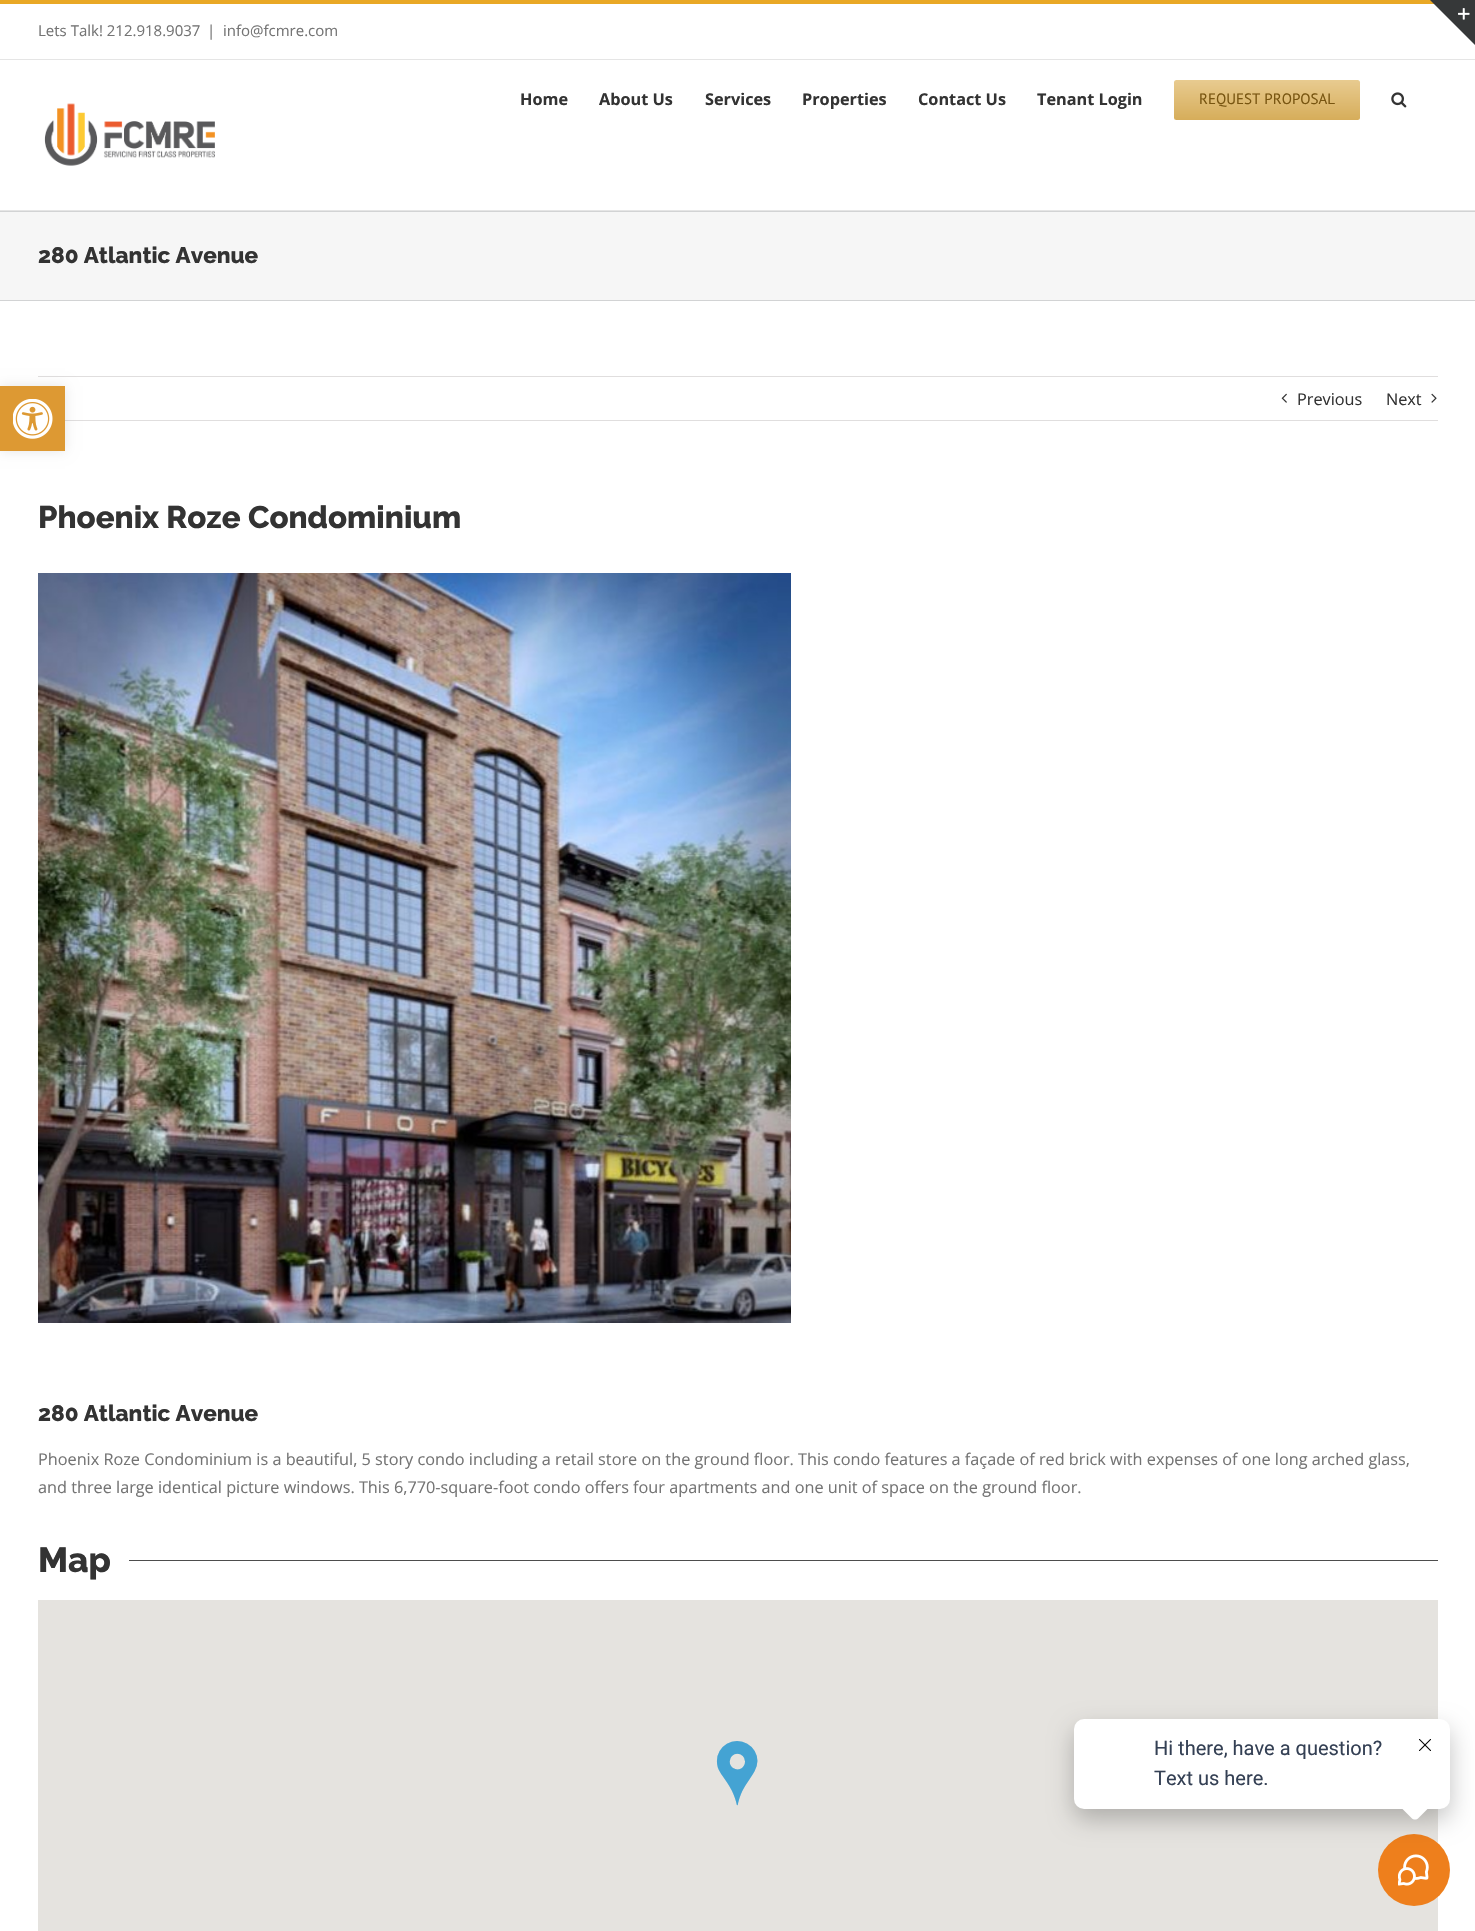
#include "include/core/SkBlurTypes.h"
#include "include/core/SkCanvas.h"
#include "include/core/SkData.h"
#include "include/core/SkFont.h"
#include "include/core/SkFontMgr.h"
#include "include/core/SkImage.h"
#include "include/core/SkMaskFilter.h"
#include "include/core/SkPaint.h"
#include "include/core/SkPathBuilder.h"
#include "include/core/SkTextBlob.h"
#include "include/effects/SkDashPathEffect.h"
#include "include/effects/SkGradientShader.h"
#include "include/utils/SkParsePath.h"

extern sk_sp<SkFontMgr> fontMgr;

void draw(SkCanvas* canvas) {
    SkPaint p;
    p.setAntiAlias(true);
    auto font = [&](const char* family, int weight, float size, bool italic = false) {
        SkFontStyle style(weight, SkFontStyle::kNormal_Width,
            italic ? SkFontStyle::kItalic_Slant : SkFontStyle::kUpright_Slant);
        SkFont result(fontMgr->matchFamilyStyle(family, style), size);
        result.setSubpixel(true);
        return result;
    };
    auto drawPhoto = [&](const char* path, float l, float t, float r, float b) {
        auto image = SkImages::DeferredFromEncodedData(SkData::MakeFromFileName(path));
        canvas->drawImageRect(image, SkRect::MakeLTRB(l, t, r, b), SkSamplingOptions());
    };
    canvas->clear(0xFFF6F6F6);
    {
        const struct { float l, t, r, b; SkColor color; } items[] = {
            {0, 4, 1475, 59, 0xFFFFFFFF},
            {0, 0, 1434, 4, 0xFFE9A825},
            {0, 59, 1475, 60, 0xFFE5E5E5},
        };
        for (auto [l, t, r, b, color] : items) {
            p.setColor(color);
            canvas->drawRect(SkRect::MakeLTRB(l, t, r, b), p);
        }
    }
    auto font1 = font("Open Sans", 400, 15);
    p.setColor(0xFF747474);
    {
        const struct { const char* s; float x, y; } items[] = {
            {"Lets Talk! 212.918.9037", 38, 36},
            {"|", 207, 36},
            {"info@fcmre.com", 223, 36},
        };
        for (auto [s, x, y] : items) {
            canvas->drawString(s, x, y, font1, p);
        }
    }
    p.setColor(0xFFFFFFFF);
    canvas->drawRect(SkRect::MakeLTRB(0, 60, 1475, 210), p);
    p.setColor(0xFFE5E5E5);
    canvas->drawRect(SkRect::MakeLTRB(0, 210, 1475, 211), p);
    auto font2 = font("Open Sans", 700, 16.25f);
    p.setColor(0xFF333333);
    {
        const struct { const char* s; float x, y; } items[] = {
            {"Home", 520, 105},
            {"About Us", 599, 105},
            {"Services", 705, 105},
            {"Properties", 802, 105},
            {"Contact Us", 918, 105},
            {"Tenant Login", 1037, 105},
        };
        for (auto [s, x, y] : items) {
            canvas->drawString(s, x, y, font2, p);
        }
    }
    {
        const SkColor colors[] = {0xFFE8CB90, 0xFFD6AD5A};
        const float stops[] = {0, 1};
        const SkPoint ends[] = {{1267, 80}, {1267, 120}};
        p.setShader(SkGradientShader::MakeLinear(ends, colors, stops, 2, SkTileMode::kClamp));
        p.setAlpha(255);
    }
    canvas->drawRoundRect(SkRect::MakeLTRB(1174, 80, 1360, 120), 2.5f, 2.5f, p);
    auto font3 = font("PT Sans", 400, 15);
    p.setShader(nullptr);
    p.setColor(0xFF785510);
    canvas->drawString("REQUEST PROPOSAL", 1199, 104, font3, p);
    drawPhoto("media/1.png", 1391, 92, 1407, 108);
    drawPhoto("media/2.png", 44, 103, 215, 166);
    p.setColor(0xFF363839);
    canvas->drawPath(SkPathBuilder().moveTo(1430, 0).lineTo(1475, 0).lineTo(1475, 45).close().detach(), p);
    drawPhoto("media/3.png", 1458, 8, 1470, 20);
    p.setColor(0xFFD2D3D4);
    canvas->drawRect(SkRect::MakeLTRB(0, 211, 1475, 212), p);
    canvas->drawRect(SkRect::MakeLTRB(0, 300, 1475, 301), p);
    auto font4 = font("Raleway", 100, 22.5f);
    p.setColor(0xFF333333);
    canvas->drawString("280 Atlantic Avenue", 38, 263, font4, p);
    {
        const struct { float l, t, r, b; SkColor color; } items[] = {
            {0, 301, 1475, 1931, 0xFFFFFFFF},
            {38, 376, 1438, 377, 0xFFE0DEDE},
            {65, 420, 1438, 421, 0xFFE0DEDE},
        };
        for (auto [l, t, r, b, color] : items) {
            p.setColor(color);
            canvas->drawRect(SkRect::MakeLTRB(l, t, r, b), p);
        }
    }
    drawPhoto("media/4.png", 1281, 393, 1287, 403);
    auto font5 = font("Open Sans", 400, 16.25f);
    p.setColor(0xFF333333);
    canvas->drawString("Previous", 1297, 405, font5, p);
    canvas->drawString("Next", 1386, 405, font5, p);
    drawPhoto("media/5.png", 1431, 393, 1437, 403);
    auto font6 = font("Raleway", 100, 31.25f);
    canvas->drawString("Phoenix Roze Condominium", 38, 528, font6, p);
    drawPhoto("media/6.png", 38, 573, 791, 1323);
    canvas->drawString("280 Atlantic Avenue", 38, 1421, font4, p);
    p.setColor(0xFF747474);
    canvas->drawString("Phoenix Roze Condominium is a beautiful, 5 story condo including a retail store on the ground floor. This condo features a façade of red brick with expenses of one long arched glass,", 38, 1465, font5, p);
    canvas->drawString("and three large identical picture windows. This 6,770-square-foot condo offers four apartments and one unit of space on the ground floor.", 38, 1493, font5, p);
    auto font7 = font("Raleway", 100, 35);
    p.setColor(0xFF333333);
    canvas->drawString("Map", 38, 1572, font7, p);
    p.setColor(0xFF4D4D4D);
    canvas->drawRect(SkRect::MakeLTRB(129, 1560, 1438, 1561), p);
    p.setColor(0xFFE5E3DF);
    canvas->drawRect(SkRect::MakeLTRB(38, 1600, 1438, 1931), p);
    auto font8 = font("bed", 400, 75);
    p.setColor(0xFF44A3D3);
    canvas->drawString("`", 717, 1799, font8, p);
    p.setColor(0x1A000000);
    p.setMaskFilter(SkMaskFilter::MakeBlur(kNormal_SkBlurStyle, 6));
    canvas->drawRect(SkRect::MakeLTRB(0, 386, 65, 451), p);
    p.setMaskFilter(nullptr);
    p.setColor(0xFFDD9933);
    canvas->drawRect(SkRect::MakeLTRB(0, 386, 65, 451), p);
    drawPhoto("media/7.png", 13, 399, 53, 439);
    p.setColor(0xFFEE7F1C);
    canvas->drawCircle(1414, 1870, 36, p);
    drawPhoto("media/9.png", 1398, 1854, 1429, 1886);
    p.setColor(0x3D000000);
    p.setMaskFilter(SkMaskFilter::MakeBlur(kNormal_SkBlurStyle, 12.5f));
    canvas->drawRoundRect(SkRect::MakeLTRB(1074, 1729, 1450, 1819), 10, 10, p);
    p.setMaskFilter(nullptr);
    p.setColor(0xFFFFFFFF);
    canvas->drawRoundRect(SkRect::MakeLTRB(1074, 1719, 1450, 1809), 10, 10, p);
    auto font9 = font("Roboto", 400, 20);
    p.setColor(0xFF344054);
    canvas->drawString("Hi there, have a question?", 1154, 1755, font9, p);
    canvas->drawString("Text us here.", 1154, 1785, font9, p);
    p.setColor(0xFFFFFFFF);
    canvas->drawPath(SkPathBuilder().moveTo(1418.5f, 1789.5f).lineTo(1429, 1800).cubicTo(1431, 1802, 1431, 1805.5f, 1429, 1807.5f).lineTo(1418.5f, 1818).cubicTo(1416.5f, 1820, 1413.5f, 1820, 1411.5f, 1818).lineTo(1401, 1807.5f).cubicTo(1399, 1805.5f, 1399, 1802, 1401, 1800).lineTo(1411.5f, 1789.5f).cubicTo(1413.5f, 1787.5f, 1416.5f, 1787.5f, 1418.5f, 1789.5f).close().detach(), p);
    drawPhoto("media/8.png", 1419, 1739, 1431, 1751);
}
